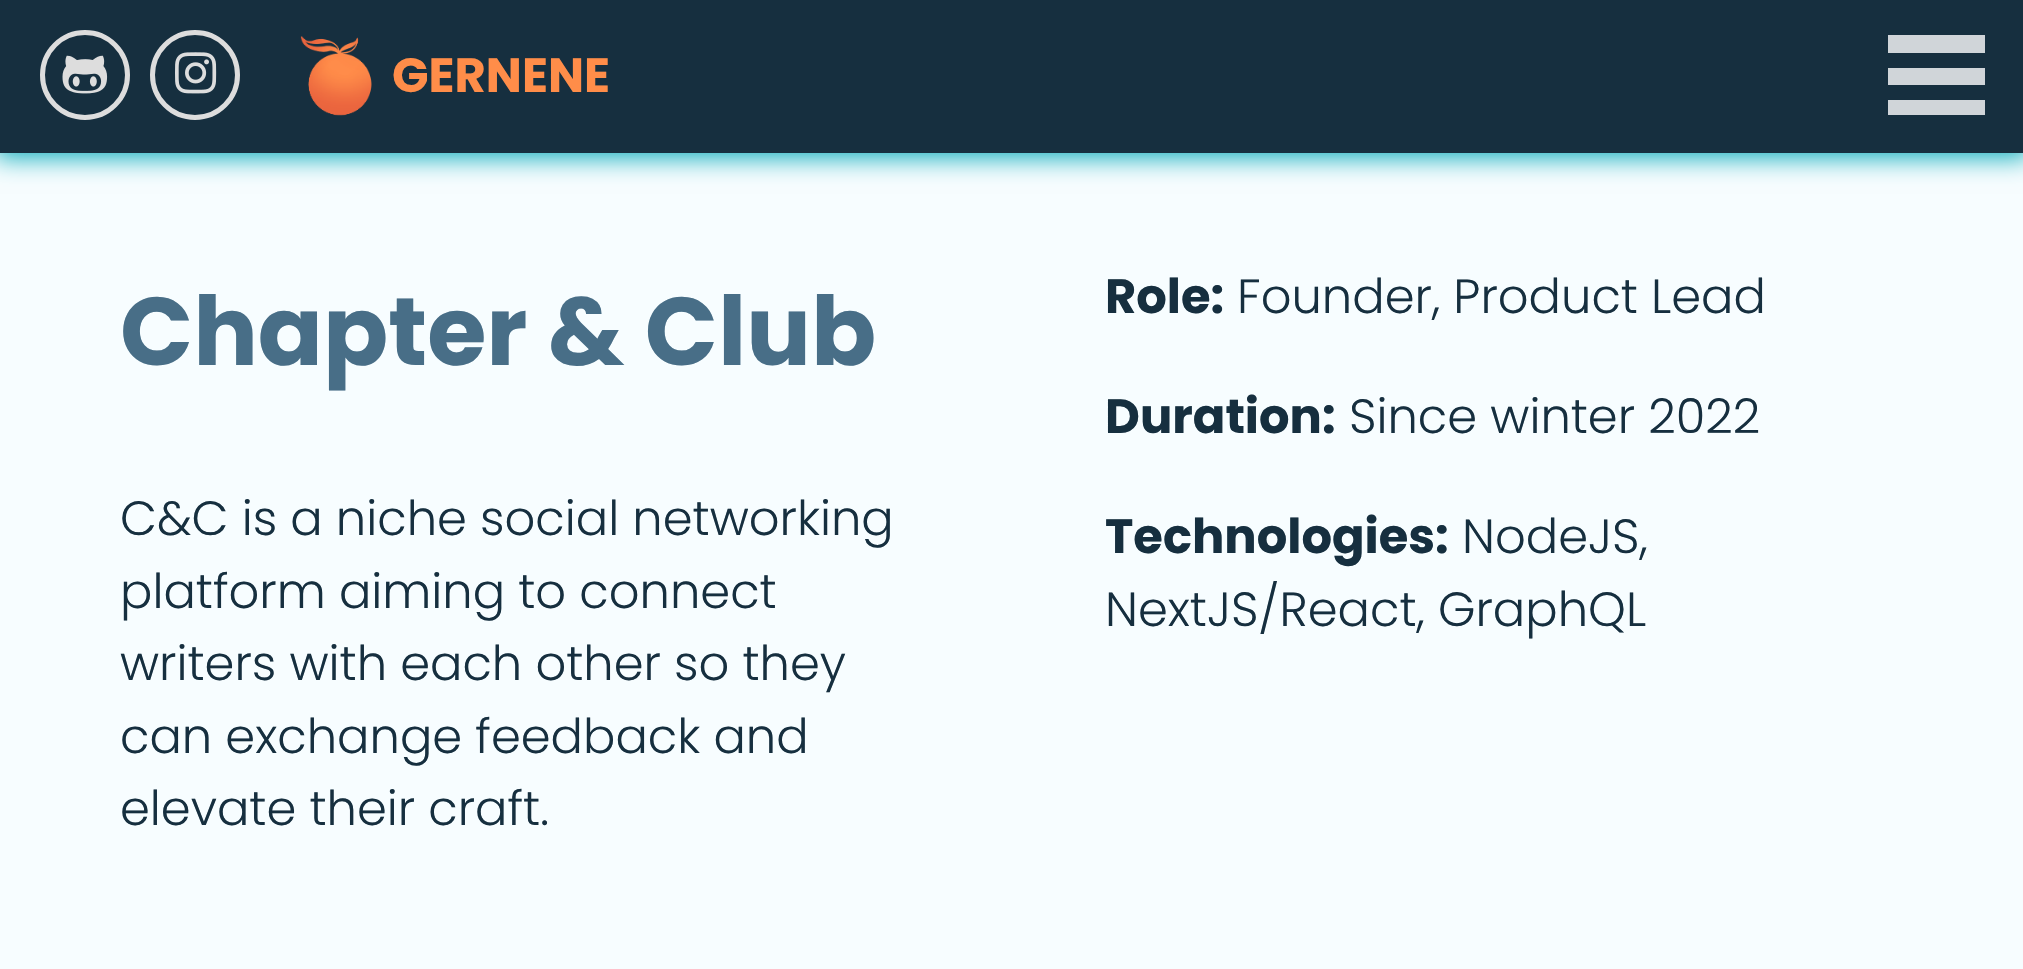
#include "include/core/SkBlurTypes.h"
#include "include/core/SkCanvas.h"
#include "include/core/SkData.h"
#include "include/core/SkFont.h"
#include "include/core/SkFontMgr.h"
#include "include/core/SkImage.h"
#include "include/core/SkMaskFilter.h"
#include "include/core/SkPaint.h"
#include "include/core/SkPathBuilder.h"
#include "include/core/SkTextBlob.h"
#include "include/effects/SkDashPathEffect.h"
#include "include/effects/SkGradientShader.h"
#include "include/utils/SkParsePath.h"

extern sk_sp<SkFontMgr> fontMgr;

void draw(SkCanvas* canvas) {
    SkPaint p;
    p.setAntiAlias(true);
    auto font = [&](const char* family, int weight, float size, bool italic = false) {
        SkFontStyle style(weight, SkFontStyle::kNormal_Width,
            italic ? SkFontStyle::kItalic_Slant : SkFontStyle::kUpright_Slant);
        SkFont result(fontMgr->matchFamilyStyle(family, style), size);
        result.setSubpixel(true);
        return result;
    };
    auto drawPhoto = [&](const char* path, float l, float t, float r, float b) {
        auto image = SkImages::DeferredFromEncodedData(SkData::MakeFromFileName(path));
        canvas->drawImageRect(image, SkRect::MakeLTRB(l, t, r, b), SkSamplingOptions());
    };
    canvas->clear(0xFFF7FDFF);
    p.setColor(0xFF10AEBD);
    p.setMaskFilter(SkMaskFilter::MakeBlur(kNormal_SkBlurStyle, 12));
    canvas->drawRect(SkRect::MakeLTRB(-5, -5, 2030, 158), p);
    p.setMaskFilter(nullptr);
    p.setColor(0xFF162F3F);
    canvas->drawRect(SkRect::MakeLTRB(0, 0, 2023, 153), p);
    p.setStyle(SkPaint::kStroke_Style);
    p.setStrokeWidth(5);
    p.setColor(0xFFDDDDDD);
    canvas->drawCircle(85, 75, 42.5f, p);
    drawPhoto("media/1.png", 62, 55, 108, 94);
    canvas->drawCircle(195, 75, 42.5f, p);
    drawPhoto("media/2.png", 175, 52, 217, 94);
    drawPhoto("media/3.png", 300, 36, 372, 116);
    auto font1 = font("Poppins", 700, 48);
    p.setStyle(SkPaint::kFill_Style);
    p.setColor(0xFFFF8D49);
    canvas->drawString("GERNENE", 392, 92, font1, p);
    {
        const struct { float l, t, r, b; SkColor color; } items[] = {
            {1888, 35, 1985, 53, 0xFFD0D5D9},
            {1888, 68, 1985, 85, 0xFFD0D5D9},
            {1888, 100, 1985, 115, 0xFFD0D5D9},
        };
        for (auto [l, t, r, b, color] : items) {
            p.setColor(color);
            canvas->drawRect(SkRect::MakeLTRB(l, t, r, b), p);
        }
    }
    auto font2 = font("Poppins", 700, 96);
    p.setColor(0xFF486E87);
    canvas->drawString("Chapter & Club", 120, 365, font2, p);
    auto font3 = font("Poppins", 300, 48);
    p.setColor(0xFF162F3F);
    {
        const struct { const char* s; float x, y; } items[] = {
            {"C&C is a niche social networking", 120, 535},
            {"platform aiming to connect", 120, 608},
            {"writers with each other so they", 120, 680},
            {"can exchange feedback and", 120, 753},
            {"elevate their craft.", 120, 825},
        };
        for (auto [s, x, y] : items) {
            canvas->drawString(s, x, y, font3, p);
        }
    }
    canvas->drawString("Role:", 1105, 313, font1, p);
    canvas->drawString("Founder, Product Lead", 1237, 313, font3, p);
    canvas->drawString("Duration:", 1105, 433, font1, p);
    canvas->drawString("Since winter 2022", 1349, 433, font3, p);
    canvas->drawString("Technologies:", 1105, 553, font1, p);
    canvas->drawString("NodeJS,", 1462, 553, font3, p);
    canvas->drawString("NextJS/React, GraphQL", 1105, 626, font3, p);
}
